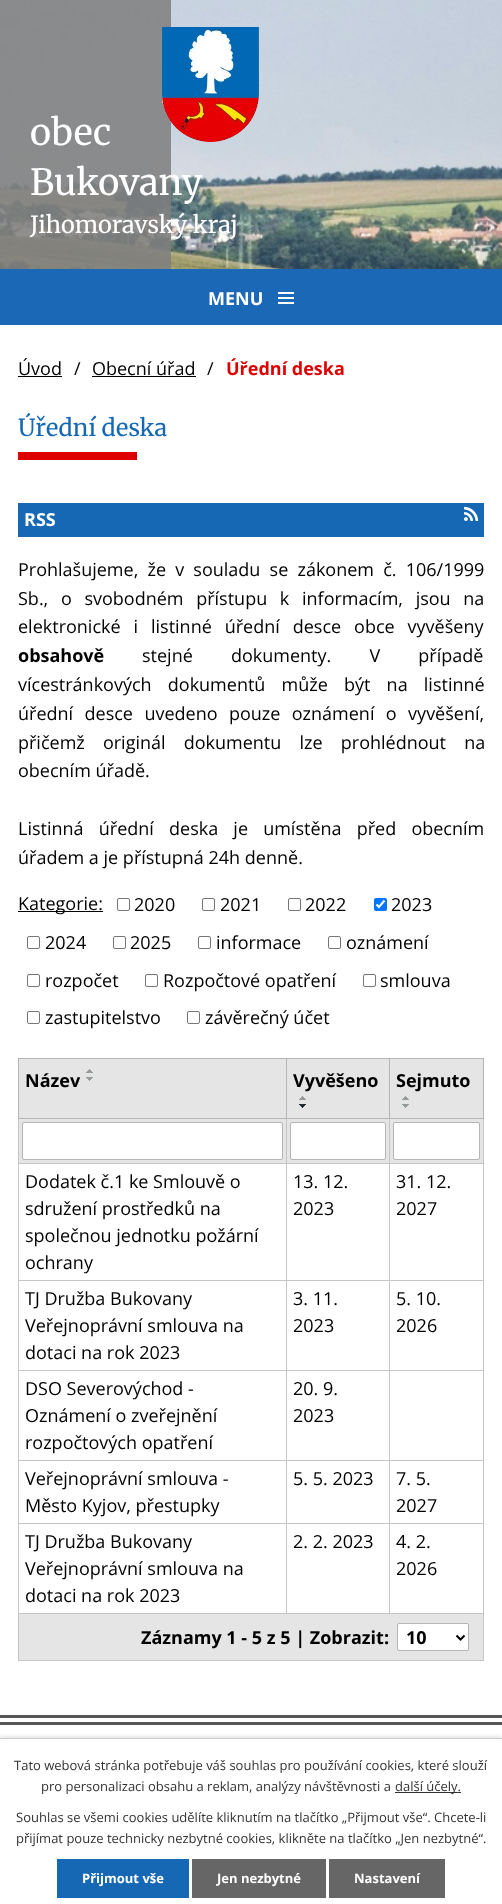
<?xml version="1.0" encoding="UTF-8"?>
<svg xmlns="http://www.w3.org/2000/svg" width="502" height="1904">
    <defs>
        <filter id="blur1" x="-50%" y="-200%" width="200%" height="500%"><feGaussianBlur stdDeviation="2.5"/></filter>
    </defs>
    <rect width="100%" height="100%" fill="#FFFFFF"/>
    <image x="0" y="0" width="502" height="269" href="img_01.png"/>
    <rect x="0" y="0" width="171" height="269" fill="#7F7F7F" fill-opacity="0.87"/>
    <image x="162" y="27" width="97" height="115" href="img_02.png"/>
    <text font-family="Merriweather" font-size="36" font-weight="300" fill="#FFFFFF">
        <tspan x="30" y="145">obec</tspan>
        <tspan x="30" y="195">Bukovany</tspan>
    </text>
    <text x="30" y="233" font-family="Merriweather" font-size="23.5" font-weight="300" fill="#FFFFFF">Jihomoravský kraj</text>
    <rect x="0" y="269" width="502" height="56" fill="#1B69B6"/>
    <text x="208" y="305" font-family="Open Sans" font-size="18" font-weight="700" fill="#FFFFFF">MENU</text>
    <image x="278" y="292" width="16" height="12" href="img_03.png"/>
    <text x="18" y="375" font-family="Open Sans" font-size="18" fill="#000000">Úvod</text>
    <rect x="18" y="376" width="44" height="1" fill="#000000"/>
    <text x="74" y="375" font-family="Open Sans" font-size="18" fill="#000000">/</text>
    <text x="92" y="375" font-family="Open Sans" font-size="18" fill="#000000">Obecní úřad</text>
    <rect x="92" y="376" width="104" height="1" fill="#000000"/>
    <text x="207" y="375" font-family="Open Sans" font-size="18" fill="#000000">/</text>
    <text x="226" y="375" font-family="Open Sans" font-size="18" font-weight="700" fill="#DE0000">Úřední deska</text>
    <text x="18" y="436" font-family="Merriweather" font-size="23.5" font-weight="300" fill="#1668B5">Úřední deska</text>
    <rect x="18" y="452" width="119" height="8" fill="#DE0000"/>
    <rect x="18" y="503" width="466" height="34" fill="#1668B5"/>
    <text x="24" y="526" font-family="Open Sans" font-size="18" font-weight="700" fill="#FFFFFF">RSS</text>
    <image x="464" y="506" width="15" height="15" href="img_04.png"/>
    <text font-family="Open Sans" font-size="18" fill="#000000">
        <tspan x="18" y="576" word-spacing="4.5">Prohlašujeme, že v souladu se zákonem č. 106/1999</tspan>
        <tspan x="18" y="605" word-spacing="8">Sb., o svobodném přístupu k informacím, jsou na</tspan>
        <tspan x="18" y="633" word-spacing="8.25">elektronické i listinné úřední desce obce vyvěšeny</tspan>
    </text>
    <text x="18" y="662" font-family="Open Sans" font-size="18" font-weight="700" fill="#000000">obsahově</text>
    <text x="142" y="662" word-spacing="33.5" font-family="Open Sans" font-size="18" fill="#000000">stejné dokumenty. V případě</text>
    <text font-family="Open Sans" font-size="18" fill="#000000">
        <tspan x="18" y="691" word-spacing="11.5">vícestránkových dokumentů může být na listinné</tspan>
        <tspan x="18" y="720" word-spacing="6.75">úřední desce uvedeno pouze oznámení o vyvěšení,</tspan>
        <tspan x="18" y="749" word-spacing="13.5">přičemž originál dokumentu lze prohlédnout na</tspan>
        <tspan x="18" y="777">obecním úřadě.</tspan>
    </text>
    <text font-family="Open Sans" font-size="18" fill="#000000">
        <tspan x="18" y="835" word-spacing="10.5">Listinná úřední deska je umístěna před obecním</tspan>
        <tspan x="18" y="864">úřadem a je přístupná 24h denně.</tspan>
    </text>
    <rect x="18" y="911" width="85" height="1" fill="#000000"/>
    <text x="18" y="910" font-family="Open Sans" font-size="18" fill="#000000">Kategorie:</text>
    <rect x="117.5" y="898.5" width="12" height="12" rx="1.5" fill="none" stroke="#767676"/>
    <text x="134" y="911" font-family="Open Sans" font-size="18" fill="#000000">2020</text>
    <rect x="202.5" y="898.5" width="12" height="12" rx="1.5" fill="none" stroke="#767676"/>
    <text x="220" y="911" font-family="Open Sans" font-size="18" fill="#000000">2021</text>
    <rect x="288.5" y="898.5" width="12" height="12" rx="1.5" fill="none" stroke="#767676"/>
    <text x="305" y="911" font-family="Open Sans" font-size="18" fill="#000000">2022</text>
    <rect x="374" y="898" width="13" height="13" rx="2" fill="#0075FF"/>
    <path d="M 376.5 904.5 L 379 907 L 384.5 900.5" fill="none" stroke="#FFFFFF" stroke-width="2.1"/>
    <text x="391" y="911" font-family="Open Sans" font-size="18" fill="#000000">2023</text>
    <rect x="27.5" y="936.5" width="12" height="12" rx="1.5" fill="none" stroke="#767676"/>
    <text x="45" y="949" font-family="Open Sans" font-size="18" fill="#000000">2024</text>
    <rect x="113.5" y="936.5" width="12" height="12" rx="1.5" fill="none" stroke="#767676"/>
    <text x="130" y="949" font-family="Open Sans" font-size="18" fill="#000000">2025</text>
    <rect x="198.5" y="936.5" width="12" height="12" rx="1.5" fill="none" stroke="#767676"/>
    <text x="216" y="949" font-family="Open Sans" font-size="18" fill="#000000">informace</text>
    <rect x="328.5" y="936.5" width="12" height="12" rx="1.5" fill="none" stroke="#767676"/>
    <text x="346" y="949" font-family="Open Sans" font-size="18" fill="#000000">oznámení</text>
    <rect x="27.5" y="974.5" width="12" height="12" rx="1.5" fill="none" stroke="#767676"/>
    <text x="45" y="987" font-family="Open Sans" font-size="18" fill="#000000">rozpočet</text>
    <rect x="145.5" y="974.5" width="12" height="12" rx="1.5" fill="none" stroke="#767676"/>
    <text x="163" y="987" font-family="Open Sans" font-size="18" fill="#000000">Rozpočtové opatření</text>
    <rect x="363.5" y="974.5" width="12" height="12" rx="1.5" fill="none" stroke="#767676"/>
    <text x="380" y="987" font-family="Open Sans" font-size="18" fill="#000000">smlouva</text>
    <rect x="27.5" y="1011.5" width="12" height="12" rx="1.5" fill="none" stroke="#767676"/>
    <text x="45" y="1024" font-family="Open Sans" font-size="18" fill="#000000">zastupitelstvo</text>
    <rect x="187.5" y="1011.5" width="12" height="12" rx="1.5" fill="none" stroke="#767676"/>
    <text x="205" y="1024" font-family="Open Sans" font-size="18" fill="#000000">závěrečný účet</text>
    <rect x="19" y="1059" width="267" height="59" fill="#E5E5E5"/>
    <rect x="389" y="1058" width="95" height="1" fill="#B5B5B5"/>
    <rect x="389" y="1163" width="95" height="1" fill="#C5C5C5"/>
    <rect x="389" y="1280" width="95" height="1" fill="#C5C5C5"/>
    <rect x="389" y="1370" width="95" height="1" fill="#C5C5C5"/>
    <rect x="389" y="1460" width="95" height="1" fill="#C5C5C5"/>
    <rect x="389" y="1523" width="95" height="1" fill="#C5C5C5"/>
    <rect x="483" y="1523" width="1" height="91" fill="#C5C5C5"/>
    <rect x="483" y="1460" width="1" height="64" fill="#C5C5C5"/>
    <rect x="483" y="1370" width="1" height="91" fill="#C5C5C5"/>
    <rect x="483" y="1280" width="1" height="91" fill="#C5C5C5"/>
    <rect x="483" y="1118" width="1" height="163" fill="#C5C5C5"/>
    <rect x="483" y="1058" width="1" height="61" fill="#B5B5B5"/>
    <rect x="19" y="1119" width="464" height="44" fill="#E5E5E5"/>
    <rect x="389" y="1613" width="95" height="1" fill="#C5C5C5"/>
    <rect x="389" y="1523" width="1" height="91" fill="#C5C5C5"/>
    <rect x="286" y="1523" width="104" height="1" fill="#C5C5C5"/>
    <rect x="389" y="1460" width="1" height="64" fill="#C5C5C5"/>
    <rect x="286" y="1460" width="104" height="1" fill="#C5C5C5"/>
    <rect x="389" y="1370" width="1" height="91" fill="#C5C5C5"/>
    <rect x="286" y="1370" width="104" height="1" fill="#C5C5C5"/>
    <rect x="389" y="1280" width="1" height="91" fill="#C5C5C5"/>
    <rect x="286" y="1280" width="104" height="1" fill="#C5C5C5"/>
    <rect x="389" y="1163" width="1" height="118" fill="#C5C5C5"/>
    <rect x="286" y="1163" width="104" height="1" fill="#C5C5C5"/>
    <rect x="389" y="1118" width="1" height="46" fill="#C5C5C5"/>
    <rect x="389" y="1118" width="95" height="1" fill="#B5B5B5"/>
    <rect x="389" y="1058" width="1" height="61" fill="#B5B5B5"/>
    <rect x="286" y="1058" width="104" height="1" fill="#B5B5B5"/>
    <rect x="286" y="1613" width="104" height="1" fill="#C5C5C5"/>
    <rect x="286" y="1523" width="1" height="91" fill="#C5C5C5"/>
    <rect x="18" y="1523" width="269" height="1" fill="#C5C5C5"/>
    <rect x="286" y="1460" width="1" height="64" fill="#C5C5C5"/>
    <rect x="18" y="1460" width="269" height="1" fill="#C5C5C5"/>
    <rect x="286" y="1370" width="1" height="91" fill="#C5C5C5"/>
    <rect x="18" y="1370" width="269" height="1" fill="#C5C5C5"/>
    <rect x="286" y="1280" width="1" height="91" fill="#C5C5C5"/>
    <rect x="18" y="1280" width="269" height="1" fill="#C5C5C5"/>
    <rect x="286" y="1163" width="1" height="118" fill="#C5C5C5"/>
    <rect x="18" y="1163" width="269" height="1" fill="#C5C5C5"/>
    <rect x="286" y="1118" width="1" height="46" fill="#C5C5C5"/>
    <rect x="286" y="1118" width="104" height="1" fill="#B5B5B5"/>
    <rect x="286" y="1058" width="1" height="61" fill="#B5B5B5"/>
    <rect x="18" y="1058" width="269" height="1" fill="#B5B5B5"/>
    <rect x="18" y="1613" width="269" height="1" fill="#C5C5C5"/>
    <rect x="18" y="1523" width="1" height="91" fill="#C5C5C5"/>
    <rect x="18" y="1460" width="1" height="64" fill="#C5C5C5"/>
    <rect x="18" y="1370" width="1" height="91" fill="#C5C5C5"/>
    <rect x="18" y="1280" width="1" height="91" fill="#C5C5C5"/>
    <rect x="18" y="1118" width="1" height="163" fill="#C5C5C5"/>
    <rect x="18" y="1118" width="269" height="1" fill="#B5B5B5"/>
    <rect x="18" y="1058" width="1" height="61" fill="#B5B5B5"/>
    <text x="25" y="1087" font-family="Open Sans" font-size="18" font-weight="700" fill="#000000">Název</text>
    <image x="86" y="1069" width="7" height="4" href="img_05.png"/>
    <image x="86" y="1077" width="7" height="4" href="img_06.png"/>
    <rect x="287" y="1059" width="102" height="59" fill="#E5E5E5"/>
    <text x="293" y="1087" font-family="Open Sans" font-size="18" font-weight="700" fill="#000000">Vyvěšeno</text>
    <image x="299" y="1096" width="7" height="4" href="img_05.png"/>
    <image x="299" y="1104" width="7" height="4" href="img_07.png"/>
    <rect x="390" y="1059" width="93" height="59" fill="#E5E5E5"/>
    <text x="396" y="1087" font-family="Open Sans" font-size="18" font-weight="700" fill="#000000">Sejmuto</text>
    <image x="402" y="1096" width="7" height="4" href="img_05.png"/>
    <image x="402" y="1104" width="7" height="4" href="img_06.png"/>
    <rect x="22.5" y="1122.5" width="260" height="37" rx="1.5" fill="#FFFFFF" stroke="#B5B5B5"/>
    <rect x="290.5" y="1122.5" width="95" height="37" rx="1.5" fill="#FFFFFF" stroke="#B5B5B5"/>
    <rect x="393.5" y="1122.5" width="86" height="37" rx="1.5" fill="#FFFFFF" stroke="#B5B5B5"/>
    <text font-family="Open Sans" font-size="18" fill="#000000">
        <tspan x="25" y="1188">Dodatek č.1 ke Smlouvě o</tspan>
        <tspan x="25" y="1215">sdružení prostředků na</tspan>
        <tspan x="25" y="1242">společnou jednotku požární</tspan>
        <tspan x="25" y="1269">ochrany</tspan>
    </text>
    <text font-family="Open Sans" font-size="18" fill="#000000">
        <tspan x="293" y="1188">13. 12.</tspan>
        <tspan x="293" y="1215">2023</tspan>
    </text>
    <text font-family="Open Sans" font-size="18" fill="#000000">
        <tspan x="396" y="1188">31. 12.</tspan>
        <tspan x="396" y="1215">2027</tspan>
    </text>
    <text font-family="Open Sans" font-size="18" fill="#000000">
        <tspan x="25" y="1305">TJ Družba Bukovany</tspan>
        <tspan x="25" y="1332">Veřejnoprávní smlouva na</tspan>
        <tspan x="25" y="1359">dotaci na rok 2023</tspan>
    </text>
    <text font-family="Open Sans" font-size="18" fill="#000000">
        <tspan x="293" y="1305">3. 11.</tspan>
        <tspan x="293" y="1332">2023</tspan>
    </text>
    <text font-family="Open Sans" font-size="18" fill="#000000">
        <tspan x="396" y="1305">5. 10.</tspan>
        <tspan x="396" y="1332">2026</tspan>
    </text>
    <text font-family="Open Sans" font-size="18" fill="#000000">
        <tspan x="25" y="1395">DSO Severovýchod -</tspan>
        <tspan x="25" y="1422">Oznámení o zveřejnění</tspan>
        <tspan x="25" y="1449">rozpočtových opatření</tspan>
    </text>
    <text font-family="Open Sans" font-size="18" fill="#000000">
        <tspan x="293" y="1395">20. 9.</tspan>
        <tspan x="293" y="1422">2023</tspan>
    </text>
    <text font-family="Open Sans" font-size="18" fill="#000000">
        <tspan x="25" y="1485">Veřejnoprávní smlouva -</tspan>
        <tspan x="25" y="1512">Město Kyjov, přestupky</tspan>
    </text>
    <text x="293" y="1485" font-family="Open Sans" font-size="18" fill="#000000">5. 5. 2023</text>
    <text font-family="Open Sans" font-size="18" fill="#000000">
        <tspan x="396" y="1485">7. 5.</tspan>
        <tspan x="396" y="1512">2027</tspan>
    </text>
    <text font-family="Open Sans" font-size="18" fill="#000000">
        <tspan x="25" y="1548">TJ Družba Bukovany</tspan>
        <tspan x="25" y="1575">Veřejnoprávní smlouva na</tspan>
        <tspan x="25" y="1602">dotaci na rok 2023</tspan>
    </text>
    <text x="293" y="1548" font-family="Open Sans" font-size="18" fill="#000000">2. 2. 2023</text>
    <text font-family="Open Sans" font-size="18" fill="#000000">
        <tspan x="396" y="1548">4. 2.</tspan>
        <tspan x="396" y="1575">2026</tspan>
    </text>
    <rect x="19" y="1614" width="464" height="46" fill="#E5E5E5"/>
    <rect x="483" y="1613" width="1" height="48" fill="#C5C5C5"/>
    <rect x="18" y="1660" width="466" height="1" fill="#C5C5C5"/>
    <rect x="18" y="1613" width="1" height="48" fill="#C5C5C5"/>
    <text x="141" y="1644" font-family="Open Sans" font-size="18" font-weight="700" fill="#000000">Záznamy 1 - 5 z 5 | Zobrazit:</text>
    <rect x="397.5" y="1623.5" width="71" height="27" rx="1.5" fill="#FFFFFF" stroke="#B5B5B5"/>
    <path d="M 456.5 1635.5 L 460.5 1639.5 L 464.5 1635.5" fill="none" stroke="#000000" stroke-width="2"/>
    <text x="406" y="1644" font-family="Open Sans" font-size="18" font-weight="700" fill="#000000">10</text>
    <rect x="0" y="1715" width="502" height="3" fill="#555555"/>
    <rect x="0" y="1722" width="502" height="3" fill="#555555"/>
    <rect x="0" y="1738" width="502" height="166" fill="#000000" fill-opacity="0.2" filter="url(#blur1)"/>
    <rect x="0" y="1739" width="502" height="165" fill="#FFFFFF"/>
    <rect x="0" y="1738" width="502" height="1" fill="#CCCCCC"/>
    <text x="14" y="1770" font-family="Open Sans" font-size="13" fill="#333333">Tato webová stránka potřebuje váš souhlas pro používání cookies, které slouží</text>
    <text x="41" y="1791" font-family="Open Sans" font-size="13" fill="#333333">pro personalizaci obsahu a reklam, analýzy návštěvnosti a</text>
    <rect x="395" y="1792" width="66" height="1" fill="#333333"/>
    <text x="395" y="1791" font-family="Open Sans" font-size="13" fill="#333333">další účely.</text>
    <text font-family="Open Sans" font-size="13" fill="#333333">
        <tspan x="16" y="1822">Souhlas se všemi cookies udělíte kliknutím na tlačítko „Přijmout vše“. Chcete-li</tspan>
        <tspan x="16" y="1843">přijímat pouze technicky nezbytné cookies, klikněte na tlačítko „Jen nezbytné“.</tspan>
    </text>
    <rect x="57" y="1859" width="132" height="39" fill="#1668B5"/>
    <text x="82" y="1883" font-family="Open Sans" font-size="13" font-weight="700" fill="#FFFFFF">Přijmout vše</text>
    <rect x="192" y="1859" width="134" height="39" fill="#666666"/>
    <text x="217" y="1883" font-family="Open Sans" font-size="13" font-weight="700" fill="#FFFFFF">Jen nezbytné</text>
    <rect x="329" y="1859" width="116" height="39" fill="#666666"/>
    <text x="354" y="1883" font-family="Open Sans" font-size="13" font-weight="700" fill="#FFFFFF">Nastavení</text>
</svg>
